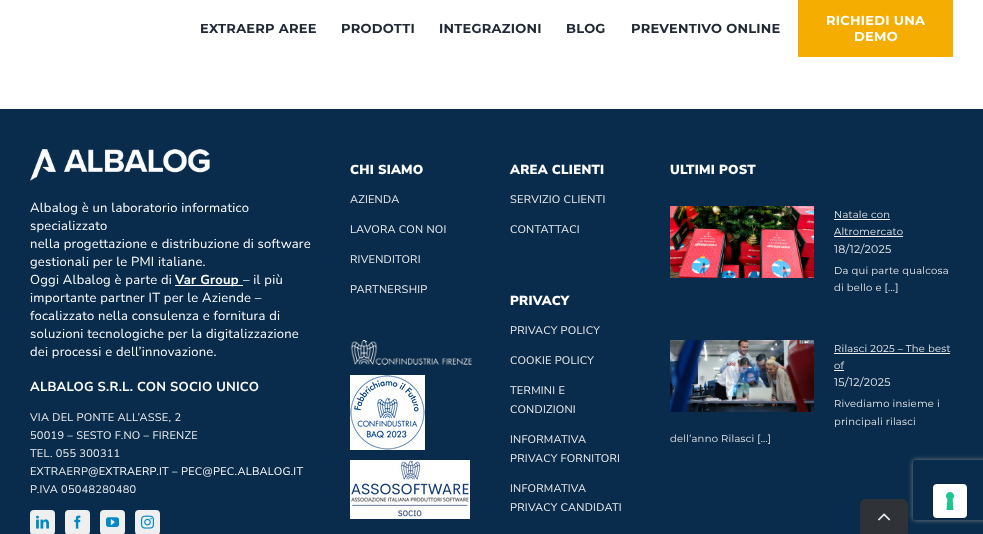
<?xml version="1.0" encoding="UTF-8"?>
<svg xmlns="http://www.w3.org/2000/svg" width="983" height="534">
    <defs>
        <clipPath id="clip1"><path d="M 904 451 H 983 V 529 H 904 Z M 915 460 H 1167 C 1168 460 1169 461 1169 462 V 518 C 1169 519 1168 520 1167 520 H 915 C 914 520 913 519 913 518 V 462 C 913 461 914 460 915 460 Z" clip-rule="evenodd"/></clipPath>
        <filter id="blur1" x="-50%" y="-200%" width="200%" height="500%"><feGaussianBlur stdDeviation="2.5"/></filter>
    </defs>
    <rect width="100%" height="100%" fill="#FFFFFF"/>
    <text x="200" y="33" font-family="Montserrat" font-size="13" font-weight="700" letter-spacing="0.25" fill="#212934">EXTRAERP AREE</text>
    <text x="341" y="33" font-family="Montserrat" font-size="13" font-weight="700" letter-spacing="0.25" fill="#212934">PRODOTTI</text>
    <text x="439" y="33" font-family="Montserrat" font-size="13" font-weight="700" letter-spacing="0.25" fill="#212934">INTEGRAZIONI</text>
    <text x="566" y="33" font-family="Montserrat" font-size="13" font-weight="700" letter-spacing="0.25" fill="#212934">BLOG</text>
    <text x="631" y="33" font-family="Montserrat" font-size="13" font-weight="700" letter-spacing="0.25" fill="#212934">PREVENTIVO ONLINE</text>
    <rect x="798" y="0" width="155" height="57" fill="#F4AD00"/>
    <text x="826" y="25" font-family="Montserrat" font-size="13" font-weight="700" letter-spacing="0.25" fill="#FFFFFF">RICHIEDI UNA</text>
    <text x="854" y="41" font-family="Montserrat" font-size="13" font-weight="700" letter-spacing="0.25" fill="#FFFFFF">DEMO</text>
    <rect x="0" y="109" width="983" height="425" fill="#092C4C"/>
    <image x="30" y="149" width="180" height="32" href="img_01.png"/>
    <text font-family="Nunito Sans" font-size="13" letter-spacing="0.25" fill="#FFFFFF">
        <tspan x="30" y="212">Albalog è un laboratorio informatico</tspan>
        <tspan x="30" y="230">specializzato</tspan>
        <tspan x="30" y="248">nella progettazione e distribuzione di software</tspan>
        <tspan x="30" y="266">gestionali per le PMI italiane.</tspan>
        <tspan x="30" y="284">Oggi Albalog è parte di</tspan>
    </text>
    <rect x="175" y="285" width="68" height="1" fill="#FFFFFF"/>
    <text x="175" y="284" font-family="Nunito Sans" font-size="13" font-weight="700" letter-spacing="0.25" fill="#FFFFFF">Var Group</text>
    <text x="243" y="284" font-family="Nunito Sans" font-size="13" letter-spacing="0.25" fill="#FFFFFF">– il più</text>
    <text font-family="Nunito Sans" font-size="13" letter-spacing="0.25" fill="#FFFFFF">
        <tspan x="30" y="302">importante partner IT per le Aziende –</tspan>
        <tspan x="30" y="320">focalizzato nella consulenza e fornitura di</tspan>
        <tspan x="30" y="338">soluzioni tecnologiche per la digitalizzazione</tspan>
        <tspan x="30" y="356">dei processi e dell’innovazione.</tspan>
    </text>
    <text x="30" y="391" font-family="Nunito Sans" font-size="13" font-weight="700" letter-spacing="0.25" fill="#FFFFFF">ALBALOG S.R.L. CON SOCIO UNICO</text>
    <text font-family="Nunito Sans" font-size="11" letter-spacing="0.25" fill="#EFEFEF">
        <tspan x="30" y="421">VIA DEL PONTE ALL’ASSE, 2</tspan>
        <tspan x="30" y="439">50019 – SESTO F.NO – FIRENZE</tspan>
        <tspan x="30" y="457">TEL. 055 300311</tspan>
        <tspan x="30" y="475">EXTRAERP</tspan>
    </text>
    <text x="88" y="475" font-family="Nunito Sans" font-size="11" letter-spacing="0.25" fill="#FFFFFF">@EXTRAERP.IT</text>
    <text x="172" y="475" font-family="Nunito Sans" font-size="11" letter-spacing="0.25" fill="#EFEFEF">–</text>
    <text x="181" y="475" font-family="Nunito Sans" font-size="11" letter-spacing="0.25" fill="#FFFFFF">PEC@PEC.ALBALOG.IT</text>
    <text x="30" y="493" font-family="Nunito Sans" font-size="11" letter-spacing="0.25" fill="#EFEFEF">P.IVA 05048280480</text>
    <rect x="30" y="510" width="25" height="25" rx="4" fill="#EFEFEF"/>
    <image x="36" y="515" width="13" height="14" href="img_02.png"/>
    <rect x="65" y="510" width="25" height="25" rx="4" fill="#EFEFEF"/>
    <image x="74" y="515" width="7" height="14" href="img_03.png"/>
    <rect x="100" y="510" width="25" height="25" rx="4" fill="#EFEFEF"/>
    <image x="106" y="517" width="13" height="10" href="img_04.png"/>
    <rect x="135" y="510" width="25" height="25" rx="4" fill="#EFEFEF"/>
    <image x="141" y="515" width="13" height="14" href="img_05.png"/>
    <text x="350" y="174" font-family="Nunito Sans" font-size="13" font-weight="900" letter-spacing="0.25" fill="#FFFFFF">CHI SIAMO</text>
    <text x="350" y="203" font-family="Nunito Sans" font-size="11" letter-spacing="0.25" fill="#EFEFEF">AZIENDA</text>
    <text x="350" y="233" font-family="Nunito Sans" font-size="11" letter-spacing="0.25" fill="#EFEFEF">LAVORA CON NOI</text>
    <text x="350" y="263" font-family="Nunito Sans" font-size="11" letter-spacing="0.25" fill="#EFEFEF">RIVENDITORI</text>
    <text x="350" y="293" font-family="Nunito Sans" font-size="11" letter-spacing="0.25" fill="#EFEFEF">PARTNERSHIP</text>
    <image x="350" y="340" width="123" height="25" href="img_06.png"/>
    <image x="350" y="375" width="75" height="75" href="img_07.png"/>
    <image x="350" y="460" width="120" height="59" href="img_08.png"/>
    <text x="510" y="174" font-family="Nunito Sans" font-size="13" font-weight="900" letter-spacing="0.25" fill="#FFFFFF">AREA CLIENTI</text>
    <text x="510" y="203" font-family="Nunito Sans" font-size="11" letter-spacing="0.25" fill="#EFEFEF">SERVIZIO CLIENTI</text>
    <text x="510" y="233" font-family="Nunito Sans" font-size="11" letter-spacing="0.25" fill="#EFEFEF">CONTATTACI</text>
    <text x="510" y="305" font-family="Nunito Sans" font-size="13" font-weight="900" letter-spacing="0.25" fill="#FFFFFF">PRIVACY</text>
    <text x="510" y="334" font-family="Nunito Sans" font-size="11" letter-spacing="0.25" fill="#EFEFEF">PRIVACY POLICY</text>
    <text x="510" y="364" font-family="Nunito Sans" font-size="11" letter-spacing="0.25" fill="#EFEFEF">COOKIE POLICY</text>
    <text font-family="Nunito Sans" font-size="11" letter-spacing="0.25" fill="#EFEFEF">
        <tspan x="510" y="394">TERMINI E</tspan>
        <tspan x="510" y="413">CONDIZIONI</tspan>
    </text>
    <text font-family="Nunito Sans" font-size="11" letter-spacing="0.25" fill="#EFEFEF">
        <tspan x="510" y="443">INFORMATIVA</tspan>
        <tspan x="510" y="462">PRIVACY FORNITORI</tspan>
    </text>
    <text font-family="Nunito Sans" font-size="11" letter-spacing="0.25" fill="#EFEFEF">
        <tspan x="510" y="492">INFORMATIVA</tspan>
        <tspan x="510" y="511">PRIVACY CANDIDATI</tspan>
    </text>
    <text x="670" y="174" font-family="Nunito Sans" font-size="13" font-weight="900" letter-spacing="0.25" fill="#FFFFFF">ULTIMI POST</text>
    <image x="670" y="206" width="144" height="72" href="img_09.png"/>
    <text x="834" y="218" font-family="Montserrat" font-size="10" letter-spacing="0.25" fill="#EFEFEF">Natale con</text>
    <rect x="834" y="219" width="56" height="1" fill="#EFEFEF"/>
    <text x="834" y="235" font-family="Montserrat" font-size="10" letter-spacing="0.25" fill="#EFEFEF">Altromercato</text>
    <rect x="834" y="236" width="69" height="1" fill="#EFEFEF"/>
    <text x="834" y="253" font-family="Montserrat" font-size="11" letter-spacing="0.25" fill="#EFEFEF">18/12/2025</text>
    <text font-family="Montserrat" font-size="10" letter-spacing="0.25" fill="#EFEFEF">
        <tspan x="834" y="274">Da qui parte qualcosa</tspan>
        <tspan x="834" y="291">di bello e [...]</tspan>
    </text>
    <image x="670" y="340" width="144" height="72" href="img_10.png"/>
    <text x="834" y="352" font-family="Montserrat" font-size="10" letter-spacing="0.25" fill="#EFEFEF">Rilasci 2025 – The best</text>
    <rect x="834" y="353" width="116" height="1" fill="#EFEFEF"/>
    <text x="834" y="369" font-family="Montserrat" font-size="10" letter-spacing="0.25" fill="#EFEFEF">of</text>
    <rect x="834" y="370" width="10" height="1" fill="#EFEFEF"/>
    <text x="834" y="386" font-family="Montserrat" font-size="11" letter-spacing="0.25" fill="#EFEFEF">15/12/2025</text>
    <text font-family="Montserrat" font-size="10" letter-spacing="0.25" fill="#EFEFEF">
        <tspan x="834" y="407">Rivediamo insieme i</tspan>
        <tspan x="834" y="425">principali rilasci</tspan>
    </text>
    <text x="670" y="442" font-family="Montserrat" font-size="10" letter-spacing="0.25" fill="#EFEFEF">dell’anno Rilasci [...]</text>
    <g clip-path="url(#clip1)">
        <rect x="913" y="460" width="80" height="60" rx="2" fill="#808080" filter="url(#blur1)"/>
    </g>
    <path d="M 866 499 H 902 C 905.5 499 908 501.5 908 505 V 534 H 860 V 505 C 860 501.5 862.5 499 866 499 Z" fill="#2F3236"/>
    <image x="878" y="513" width="13" height="8" href="img_11.png"/>
    <rect x="932.5" y="483.5" width="35" height="35" rx="4.5" fill="none" stroke="#082541"/>
    <rect x="933" y="484" width="34" height="34" rx="4" fill="#FFFFFF"/>
    <image x="946" y="492" width="8" height="18" href="img_12.png"/>
</svg>
